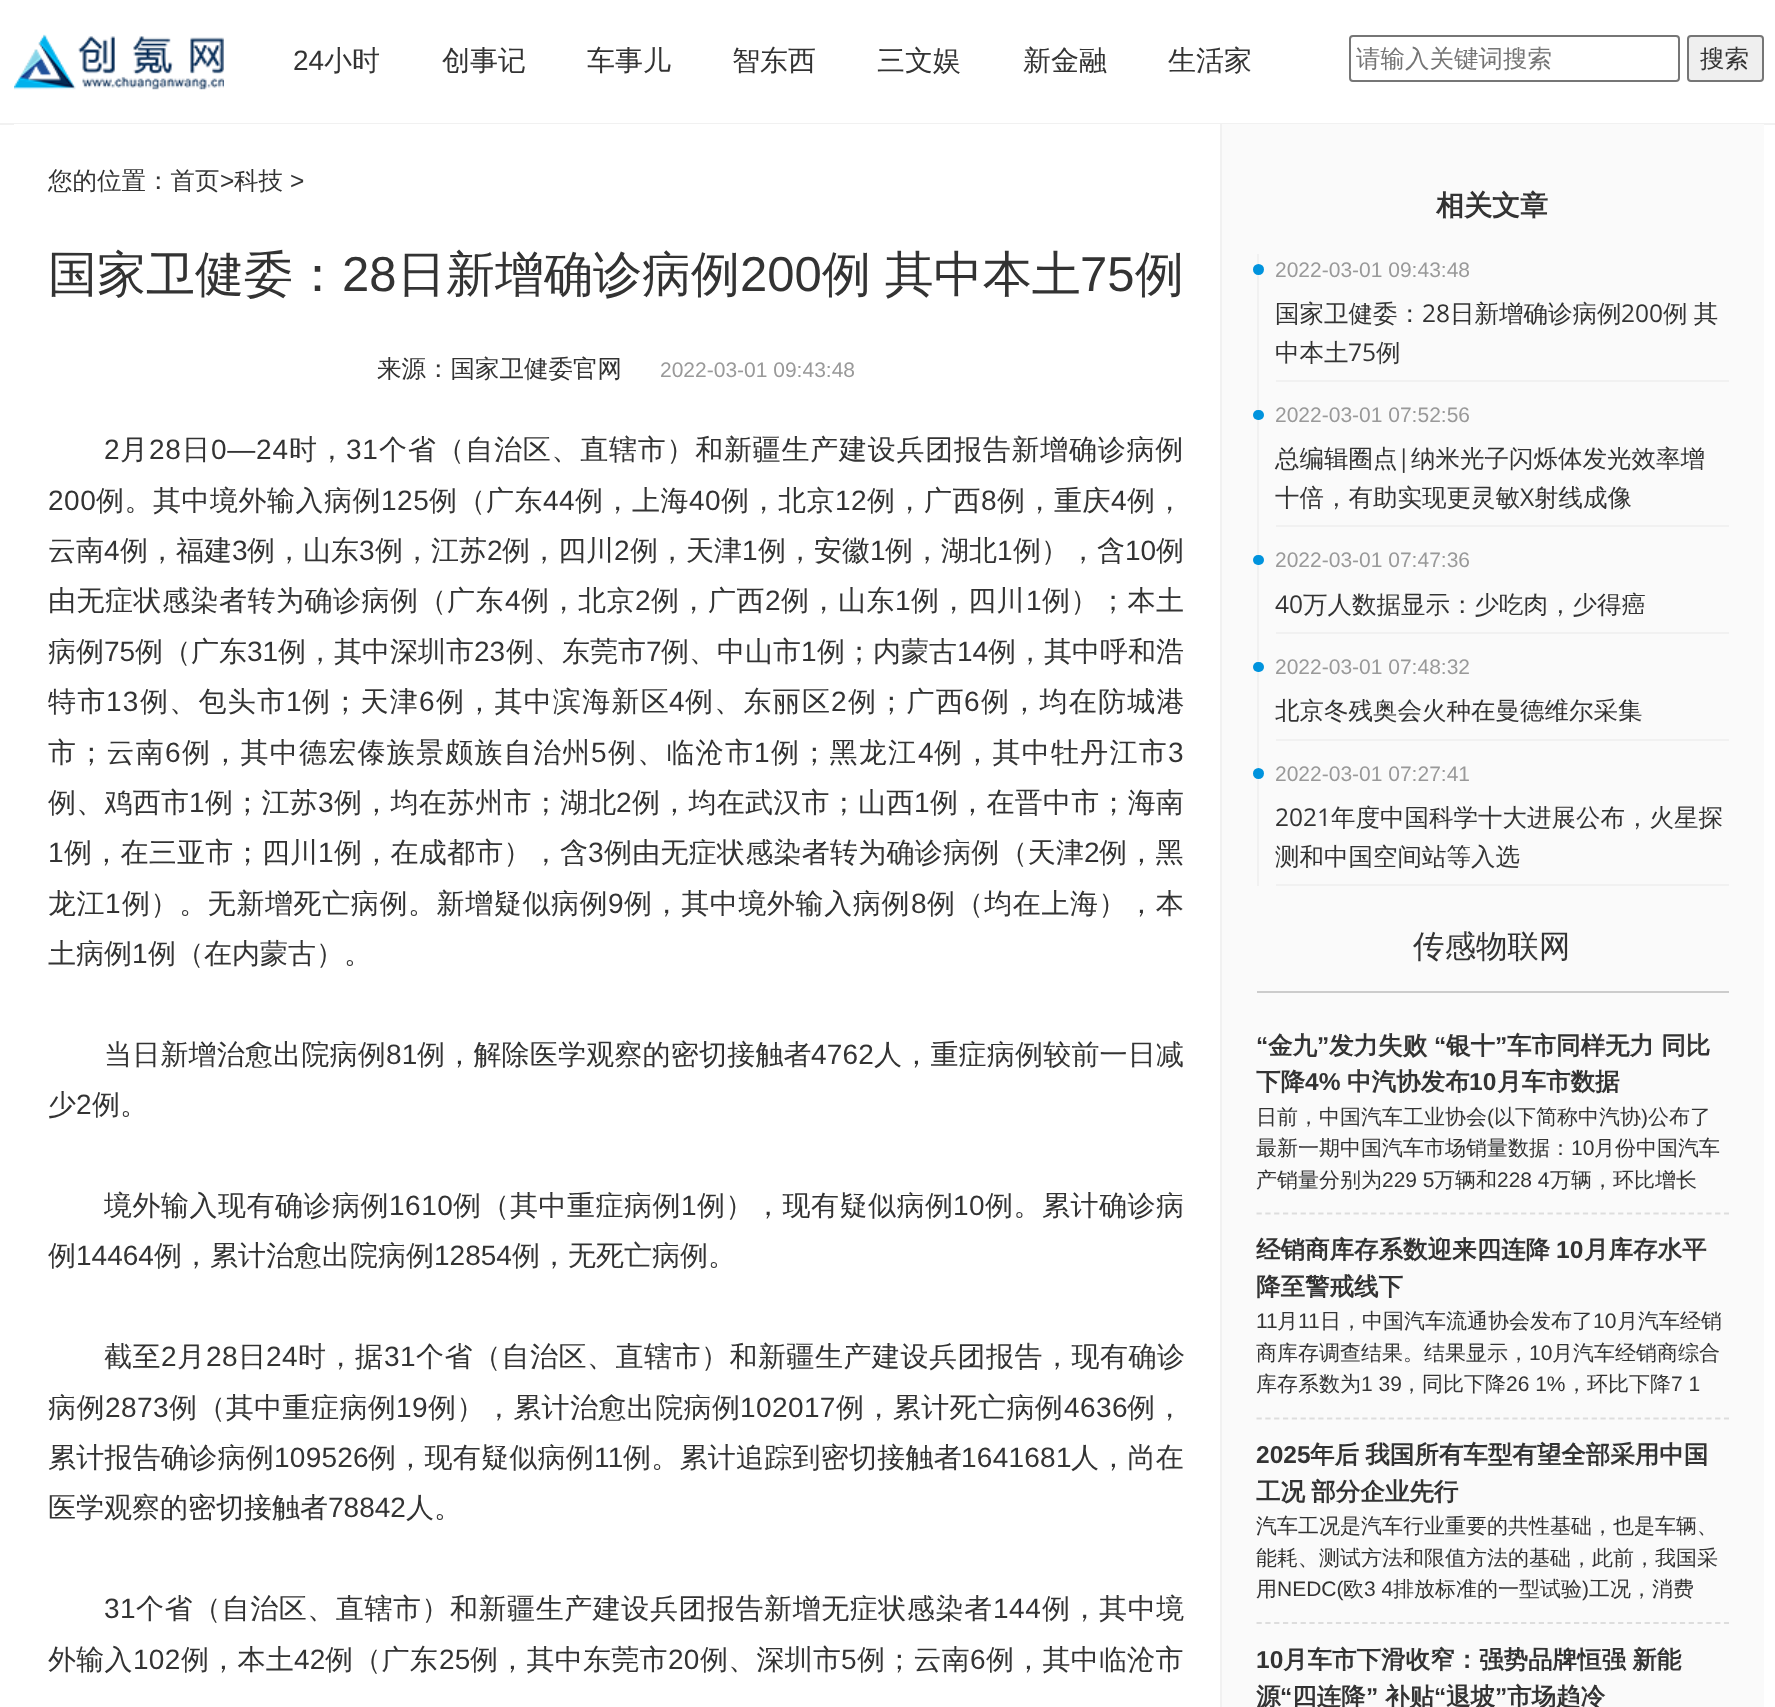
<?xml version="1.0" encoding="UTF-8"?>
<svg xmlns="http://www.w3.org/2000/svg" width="1775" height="1707">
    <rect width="100%" height="100%" fill="#FFFFFF"/>
    <rect x="0" y="123" width="1775" height="2" fill="#F1F1F1"/>
    <image x="14" y="34" width="210" height="56" href="img_01.png"/>
    <text x="293" y="70" font-family="Liberation Sans" font-size="28" fill="#333333">24</text>
    <text x="324" y="70" font-family="WenQuanYi Zen Hei" font-size="28" font-weight="500" fill="#333333">小时</text>
    <text x="442" y="70" font-family="WenQuanYi Zen Hei" font-size="28" font-weight="500" fill="#333333">创事记</text>
    <text x="587" y="70" font-family="WenQuanYi Zen Hei" font-size="28" font-weight="500" fill="#333333">车事儿</text>
    <text x="732" y="70" font-family="WenQuanYi Zen Hei" font-size="28" font-weight="500" fill="#333333">智东西</text>
    <text x="877" y="70" font-family="WenQuanYi Zen Hei" font-size="28" font-weight="500" fill="#333333">三文娱</text>
    <text x="1023" y="70" font-family="WenQuanYi Zen Hei" font-size="28" font-weight="500" fill="#333333">新金融</text>
    <text x="1168" y="70" font-family="WenQuanYi Zen Hei" font-size="28" font-weight="500" fill="#333333">生活家</text>
    <rect x="1350" y="36" width="329" height="45" rx="3" fill="none" stroke="#767676" stroke-width="2"/>
    <text x="1356" y="67" font-family="WenQuanYi Zen Hei" font-size="24.5" font-weight="500" fill="#757575">请输入关键词搜索</text>
    <rect x="1688" y="36" width="75" height="45" rx="3" fill="#EFEFEF" stroke="#767676" stroke-width="2"/>
    <text x="1700" y="67" font-family="WenQuanYi Zen Hei" font-size="24.5" font-weight="500" fill="#333333">搜索</text>
    <rect x="14" y="124" width="1206" height="1" fill="#FFFFFF"/>
    <rect x="1220" y="124" width="2" height="1583" fill="#F1F1F1"/>
    <text x="48" y="189" font-family="WenQuanYi Zen Hei" font-size="24.5" font-weight="500" fill="#333333">您的位置：首页</text>
    <text x="220" y="189" font-family="Liberation Sans" font-size="24.5" fill="#333333">&gt;</text>
    <text x="234" y="189" font-family="WenQuanYi Zen Hei" font-size="24.5" font-weight="500" fill="#333333">科技</text>
    <text x="290" y="189" font-family="Liberation Sans" font-size="24.5" fill="#333333">&gt;</text>
    <text x="48" y="291" font-family="WenQuanYi Zen Hei" font-size="49" font-weight="500" fill="#333333">国家卫健委：</text>
    <text x="342" y="291" font-family="Liberation Sans" font-size="49" fill="#333333">28</text>
    <text x="397" y="291" font-family="WenQuanYi Zen Hei" font-size="49" font-weight="500" fill="#333333">日新增确诊病例</text>
    <text x="740" y="291" font-family="Liberation Sans" font-size="49" fill="#333333">200</text>
    <text x="822" y="291" word-spacing="-1" font-family="WenQuanYi Zen Hei" font-size="49" font-weight="500" fill="#333333">例 其中本土</text>
    <text x="1080" y="291" font-family="Liberation Sans" font-size="49" fill="#333333">75</text>
    <text x="1135" y="291" font-family="WenQuanYi Zen Hei" font-size="49" font-weight="500" fill="#333333">例</text>
    <text x="377" y="377" font-family="WenQuanYi Zen Hei" font-size="24.5" font-weight="500" fill="#333333">来源：国家卫健委官网</text>
    <text x="660" y="377" font-family="Liberation Sans" font-size="21" fill="#999999">2022-03-01 09:43:48</text>
    <text x="104" y="459" font-family="Liberation Sans" font-size="28" letter-spacing="0.75" fill="#333333">2</text>
    <text x="120" y="459" font-family="WenQuanYi Zen Hei" font-size="28" font-weight="500" letter-spacing="0.75" fill="#333333">月</text>
    <text x="149" y="459" font-family="Liberation Sans" font-size="28" letter-spacing="0.75" fill="#333333">28</text>
    <text x="182" y="459" font-family="WenQuanYi Zen Hei" font-size="28" font-weight="500" letter-spacing="0.75" fill="#333333">日</text>
    <text x="211" y="459" font-family="Liberation Sans" font-size="28" letter-spacing="0.75" fill="#333333">0—24</text>
    <text x="289" y="459" font-family="WenQuanYi Zen Hei" font-size="28" font-weight="500" letter-spacing="0.75" fill="#333333">时，</text>
    <text x="346" y="459" font-family="Liberation Sans" font-size="28" letter-spacing="0.75" fill="#333333">31</text>
    <text x="379" y="459" font-family="WenQuanYi Zen Hei" font-size="28" font-weight="500" letter-spacing="0.75" fill="#333333">个省（自治区、直辖市）和新疆生产建设兵团报告新增确诊病例</text>
    <text x="48" y="510" font-family="Liberation Sans" font-size="28" letter-spacing="0.5" fill="#333333">200</text>
    <text x="96" y="510" font-family="WenQuanYi Zen Hei" font-size="28" font-weight="500" letter-spacing="0.5" fill="#333333">例。其中境外输入病例</text>
    <text x="381" y="510" font-family="Liberation Sans" font-size="28" letter-spacing="0.5" fill="#333333">125</text>
    <text x="429" y="510" font-family="WenQuanYi Zen Hei" font-size="28" font-weight="500" letter-spacing="0.5" fill="#333333">例（广东</text>
    <text x="543" y="510" font-family="Liberation Sans" font-size="28" letter-spacing="0.5" fill="#333333">44</text>
    <text x="575" y="510" font-family="WenQuanYi Zen Hei" font-size="28" font-weight="500" letter-spacing="0.5" fill="#333333">例，上海</text>
    <text x="689" y="510" font-family="Liberation Sans" font-size="28" letter-spacing="0.5" fill="#333333">40</text>
    <text x="721" y="510" font-family="WenQuanYi Zen Hei" font-size="28" font-weight="500" letter-spacing="0.5" fill="#333333">例，北京</text>
    <text x="835" y="510" font-family="Liberation Sans" font-size="28" letter-spacing="0.5" fill="#333333">12</text>
    <text x="867" y="510" font-family="WenQuanYi Zen Hei" font-size="28" font-weight="500" letter-spacing="0.5" fill="#333333">例，广西</text>
    <text x="981" y="510" font-family="Liberation Sans" font-size="28" letter-spacing="0.5" fill="#333333">8</text>
    <text x="997" y="510" font-family="WenQuanYi Zen Hei" font-size="28" font-weight="500" letter-spacing="0.5" fill="#333333">例，重庆</text>
    <text x="1111" y="510" font-family="Liberation Sans" font-size="28" letter-spacing="0.5" fill="#333333">4</text>
    <text x="1127" y="510" font-family="WenQuanYi Zen Hei" font-size="28" font-weight="500" letter-spacing="0.5" fill="#333333">例，</text>
    <text x="48" y="560" font-family="WenQuanYi Zen Hei" font-size="28" font-weight="500" fill="#333333">云南</text>
    <text x="104" y="560" font-family="Liberation Sans" font-size="28" fill="#333333">4</text>
    <text x="120" y="560" font-family="WenQuanYi Zen Hei" font-size="28" font-weight="500" fill="#333333">例，福建</text>
    <text x="232" y="560" font-family="Liberation Sans" font-size="28" fill="#333333">3</text>
    <text x="247" y="560" font-family="WenQuanYi Zen Hei" font-size="28" font-weight="500" fill="#333333">例，山东</text>
    <text x="359" y="560" font-family="Liberation Sans" font-size="28" fill="#333333">3</text>
    <text x="375" y="560" font-family="WenQuanYi Zen Hei" font-size="28" font-weight="500" fill="#333333">例，江苏</text>
    <text x="487" y="560" font-family="Liberation Sans" font-size="28" fill="#333333">2</text>
    <text x="502" y="560" font-family="WenQuanYi Zen Hei" font-size="28" font-weight="500" fill="#333333">例，四川</text>
    <text x="614" y="560" font-family="Liberation Sans" font-size="28" fill="#333333">2</text>
    <text x="630" y="560" font-family="WenQuanYi Zen Hei" font-size="28" font-weight="500" fill="#333333">例，天津</text>
    <text x="742" y="560" font-family="Liberation Sans" font-size="28" fill="#333333">1</text>
    <text x="758" y="560" font-family="WenQuanYi Zen Hei" font-size="28" font-weight="500" fill="#333333">例，安徽</text>
    <text x="870" y="560" font-family="Liberation Sans" font-size="28" fill="#333333">1</text>
    <text x="885" y="560" font-family="WenQuanYi Zen Hei" font-size="28" font-weight="500" fill="#333333">例，湖北</text>
    <text x="997" y="560" font-family="Liberation Sans" font-size="28" fill="#333333">1</text>
    <text x="1013" y="560" font-family="WenQuanYi Zen Hei" font-size="28" font-weight="500" fill="#333333">例），含</text>
    <text x="1125" y="560" font-family="Liberation Sans" font-size="28" fill="#333333">10</text>
    <text x="1156" y="560" font-family="WenQuanYi Zen Hei" font-size="28" font-weight="500" fill="#333333">例</text>
    <text x="48" y="610" font-family="WenQuanYi Zen Hei" font-size="28" font-weight="500" letter-spacing="0.5" fill="#333333">由无症状感染者转为确诊病例（广东</text>
    <text x="505" y="610" font-family="Liberation Sans" font-size="28" letter-spacing="0.5" fill="#333333">4</text>
    <text x="521" y="610" font-family="WenQuanYi Zen Hei" font-size="28" font-weight="500" letter-spacing="0.5" fill="#333333">例，北京</text>
    <text x="635" y="610" font-family="Liberation Sans" font-size="28" letter-spacing="0.5" fill="#333333">2</text>
    <text x="651" y="610" font-family="WenQuanYi Zen Hei" font-size="28" font-weight="500" letter-spacing="0.5" fill="#333333">例，广西</text>
    <text x="765" y="610" font-family="Liberation Sans" font-size="28" letter-spacing="0.5" fill="#333333">2</text>
    <text x="781" y="610" font-family="WenQuanYi Zen Hei" font-size="28" font-weight="500" letter-spacing="0.5" fill="#333333">例，山东</text>
    <text x="895" y="610" font-family="Liberation Sans" font-size="28" letter-spacing="0.5" fill="#333333">1</text>
    <text x="911" y="610" font-family="WenQuanYi Zen Hei" font-size="28" font-weight="500" letter-spacing="0.5" fill="#333333">例，四川</text>
    <text x="1026" y="610" font-family="Liberation Sans" font-size="28" letter-spacing="0.5" fill="#333333">1</text>
    <text x="1042" y="610" font-family="WenQuanYi Zen Hei" font-size="28" font-weight="500" letter-spacing="0.5" fill="#333333">例）；本土</text>
    <text x="48" y="661" font-family="WenQuanYi Zen Hei" font-size="28" font-weight="500" fill="#333333">病例</text>
    <text x="104" y="661" font-family="Liberation Sans" font-size="28" fill="#333333">75</text>
    <text x="135" y="661" font-family="WenQuanYi Zen Hei" font-size="28" font-weight="500" fill="#333333">例（广东</text>
    <text x="247" y="661" font-family="Liberation Sans" font-size="28" fill="#333333">31</text>
    <text x="278" y="661" font-family="WenQuanYi Zen Hei" font-size="28" font-weight="500" fill="#333333">例，其中深圳市</text>
    <text x="474" y="661" font-family="Liberation Sans" font-size="28" fill="#333333">23</text>
    <text x="506" y="661" font-family="WenQuanYi Zen Hei" font-size="28" font-weight="500" fill="#333333">例、东莞市</text>
    <text x="646" y="661" font-family="Liberation Sans" font-size="28" fill="#333333">7</text>
    <text x="661" y="661" font-family="WenQuanYi Zen Hei" font-size="28" font-weight="500" fill="#333333">例、中山市</text>
    <text x="801" y="661" font-family="Liberation Sans" font-size="28" fill="#333333">1</text>
    <text x="817" y="661" font-family="WenQuanYi Zen Hei" font-size="28" font-weight="500" fill="#333333">例；内蒙古</text>
    <text x="957" y="661" font-family="Liberation Sans" font-size="28" fill="#333333">14</text>
    <text x="988" y="661" font-family="WenQuanYi Zen Hei" font-size="28" font-weight="500" fill="#333333">例，其中呼和浩</text>
    <text x="48" y="711" font-family="WenQuanYi Zen Hei" font-size="28" font-weight="500" letter-spacing="1.25" fill="#333333">特市</text>
    <text x="106" y="711" font-family="Liberation Sans" font-size="28" letter-spacing="1.25" fill="#333333">13</text>
    <text x="140" y="711" font-family="WenQuanYi Zen Hei" font-size="28" font-weight="500" letter-spacing="1.25" fill="#333333">例、包头市</text>
    <text x="286" y="711" font-family="Liberation Sans" font-size="28" letter-spacing="1.25" fill="#333333">1</text>
    <text x="302" y="711" font-family="WenQuanYi Zen Hei" font-size="28" font-weight="500" letter-spacing="1.25" fill="#333333">例；天津</text>
    <text x="419" y="711" font-family="Liberation Sans" font-size="28" letter-spacing="1.25" fill="#333333">6</text>
    <text x="436" y="711" font-family="WenQuanYi Zen Hei" font-size="28" font-weight="500" letter-spacing="1.25" fill="#333333">例，其中滨海新区</text>
    <text x="669" y="711" font-family="Liberation Sans" font-size="28" letter-spacing="1.25" fill="#333333">4</text>
    <text x="685" y="711" font-family="WenQuanYi Zen Hei" font-size="28" font-weight="500" letter-spacing="1.25" fill="#333333">例、东丽区</text>
    <text x="831" y="711" font-family="Liberation Sans" font-size="28" letter-spacing="1.25" fill="#333333">2</text>
    <text x="848" y="711" font-family="WenQuanYi Zen Hei" font-size="28" font-weight="500" letter-spacing="1.25" fill="#333333">例；广西</text>
    <text x="964" y="711" font-family="Liberation Sans" font-size="28" letter-spacing="1.25" fill="#333333">6</text>
    <text x="981" y="711" font-family="WenQuanYi Zen Hei" font-size="28" font-weight="500" letter-spacing="1.25" fill="#333333">例，均在防城港</text>
    <text x="48" y="762" font-family="WenQuanYi Zen Hei" font-size="28" font-weight="500" letter-spacing="1.25" fill="#333333">市；云南</text>
    <text x="165" y="762" font-family="Liberation Sans" font-size="28" letter-spacing="1.25" fill="#333333">6</text>
    <text x="182" y="762" font-family="WenQuanYi Zen Hei" font-size="28" font-weight="500" letter-spacing="1.25" fill="#333333">例，其中德宏傣族景颇族自治州</text>
    <text x="591" y="762" font-family="Liberation Sans" font-size="28" letter-spacing="1.25" fill="#333333">5</text>
    <text x="608" y="762" font-family="WenQuanYi Zen Hei" font-size="28" font-weight="500" letter-spacing="1.25" fill="#333333">例、临沧市</text>
    <text x="754" y="762" font-family="Liberation Sans" font-size="28" letter-spacing="1.25" fill="#333333">1</text>
    <text x="771" y="762" font-family="WenQuanYi Zen Hei" font-size="28" font-weight="500" letter-spacing="1.25" fill="#333333">例；黑龙江</text>
    <text x="918" y="762" font-family="Liberation Sans" font-size="28" letter-spacing="1.25" fill="#333333">4</text>
    <text x="934" y="762" font-family="WenQuanYi Zen Hei" font-size="28" font-weight="500" letter-spacing="1.25" fill="#333333">例，其中牡丹江市</text>
    <text x="1168" y="762" font-family="Liberation Sans" font-size="28" letter-spacing="1.25" fill="#333333">3</text>
    <text x="48" y="812" font-family="WenQuanYi Zen Hei" font-size="28" font-weight="500" letter-spacing="0.25" fill="#333333">例、鸡西市</text>
    <text x="189" y="812" font-family="Liberation Sans" font-size="28" letter-spacing="0.25" fill="#333333">1</text>
    <text x="205" y="812" font-family="WenQuanYi Zen Hei" font-size="28" font-weight="500" letter-spacing="0.25" fill="#333333">例；江苏</text>
    <text x="318" y="812" font-family="Liberation Sans" font-size="28" letter-spacing="0.25" fill="#333333">3</text>
    <text x="334" y="812" font-family="WenQuanYi Zen Hei" font-size="28" font-weight="500" letter-spacing="0.25" fill="#333333">例，均在苏州市；湖北</text>
    <text x="616" y="812" font-family="Liberation Sans" font-size="28" letter-spacing="0.25" fill="#333333">2</text>
    <text x="632" y="812" font-family="WenQuanYi Zen Hei" font-size="28" font-weight="500" letter-spacing="0.25" fill="#333333">例，均在武汉市；山西</text>
    <text x="914" y="812" font-family="Liberation Sans" font-size="28" letter-spacing="0.25" fill="#333333">1</text>
    <text x="930" y="812" font-family="WenQuanYi Zen Hei" font-size="28" font-weight="500" letter-spacing="0.25" fill="#333333">例，在晋中市；海南</text>
    <text x="48" y="862" font-family="Liberation Sans" font-size="28" letter-spacing="0.25" fill="#333333">1</text>
    <text x="64" y="862" font-family="WenQuanYi Zen Hei" font-size="28" font-weight="500" letter-spacing="0.25" fill="#333333">例，在三亚市；四川</text>
    <text x="318" y="862" font-family="Liberation Sans" font-size="28" letter-spacing="0.25" fill="#333333">1</text>
    <text x="334" y="862" font-family="WenQuanYi Zen Hei" font-size="28" font-weight="500" letter-spacing="0.25" fill="#333333">例，在成都市），含</text>
    <text x="588" y="862" font-family="Liberation Sans" font-size="28" letter-spacing="0.25" fill="#333333">3</text>
    <text x="604" y="862" font-family="WenQuanYi Zen Hei" font-size="28" font-weight="500" letter-spacing="0.25" fill="#333333">例由无症状感染者转为确诊病例（天津</text>
    <text x="1084" y="862" font-family="Liberation Sans" font-size="28" letter-spacing="0.25" fill="#333333">2</text>
    <text x="1099" y="862" font-family="WenQuanYi Zen Hei" font-size="28" font-weight="500" letter-spacing="0.25" fill="#333333">例，黑</text>
    <text x="48" y="913" font-family="WenQuanYi Zen Hei" font-size="28" font-weight="500" letter-spacing="0.6" fill="#333333">龙江</text>
    <text x="105" y="913" font-family="Liberation Sans" font-size="28" letter-spacing="0.6" fill="#333333">1</text>
    <text x="122" y="913" font-family="WenQuanYi Zen Hei" font-size="28" font-weight="500" letter-spacing="0.6" fill="#333333">例）。无新增死亡病例。新增疑似病例</text>
    <text x="608" y="913" font-family="Liberation Sans" font-size="28" letter-spacing="0.6" fill="#333333">9</text>
    <text x="624" y="913" font-family="WenQuanYi Zen Hei" font-size="28" font-weight="500" letter-spacing="0.6" fill="#333333">例，其中境外输入病例</text>
    <text x="911" y="913" font-family="Liberation Sans" font-size="28" letter-spacing="0.6" fill="#333333">8</text>
    <text x="927" y="913" font-family="WenQuanYi Zen Hei" font-size="28" font-weight="500" letter-spacing="0.6" fill="#333333">例（均在上海），本</text>
    <text x="48" y="963" font-family="WenQuanYi Zen Hei" font-size="28" font-weight="500" fill="#333333">土病例</text>
    <text x="132" y="963" font-family="Liberation Sans" font-size="28" fill="#333333">1</text>
    <text x="148" y="963" font-family="WenQuanYi Zen Hei" font-size="28" font-weight="500" fill="#333333">例（在内蒙古）。</text>
    <text x="104" y="1064" font-family="WenQuanYi Zen Hei" font-size="28" font-weight="500" letter-spacing="0.2" fill="#333333">当日新增治愈出院病例</text>
    <text x="386" y="1064" font-family="Liberation Sans" font-size="28" letter-spacing="0.2" fill="#333333">81</text>
    <text x="417" y="1064" font-family="WenQuanYi Zen Hei" font-size="28" font-weight="500" letter-spacing="0.2" fill="#333333">例，解除医学观察的密切接触者</text>
    <text x="811" y="1064" font-family="Liberation Sans" font-size="28" letter-spacing="0.2" fill="#333333">4762</text>
    <text x="874" y="1064" font-family="WenQuanYi Zen Hei" font-size="28" font-weight="500" letter-spacing="0.2" fill="#333333">人，重症病例较前一日减</text>
    <text x="48" y="1114" font-family="WenQuanYi Zen Hei" font-size="28" font-weight="500" fill="#333333">少</text>
    <text x="76" y="1114" font-family="Liberation Sans" font-size="28" fill="#333333">2</text>
    <text x="92" y="1114" font-family="WenQuanYi Zen Hei" font-size="28" font-weight="500" fill="#333333">例。</text>
    <text x="104" y="1215" font-family="WenQuanYi Zen Hei" font-size="28" font-weight="500" letter-spacing="0.5" fill="#333333">境外输入现有确诊病例</text>
    <text x="389" y="1215" font-family="Liberation Sans" font-size="28" letter-spacing="0.5" fill="#333333">1610</text>
    <text x="453" y="1215" font-family="WenQuanYi Zen Hei" font-size="28" font-weight="500" letter-spacing="0.5" fill="#333333">例（其中重症病例</text>
    <text x="681" y="1215" font-family="Liberation Sans" font-size="28" letter-spacing="0.5" fill="#333333">1</text>
    <text x="697" y="1215" font-family="WenQuanYi Zen Hei" font-size="28" font-weight="500" letter-spacing="0.5" fill="#333333">例），现有疑似病例</text>
    <text x="953" y="1215" font-family="Liberation Sans" font-size="28" letter-spacing="0.5" fill="#333333">10</text>
    <text x="985" y="1215" font-family="WenQuanYi Zen Hei" font-size="28" font-weight="500" letter-spacing="0.5" fill="#333333">例。累计确诊病</text>
    <text x="48" y="1265" font-family="WenQuanYi Zen Hei" font-size="28" font-weight="500" fill="#333333">例</text>
    <text x="76" y="1265" font-family="Liberation Sans" font-size="28" fill="#333333">14464</text>
    <text x="154" y="1265" font-family="WenQuanYi Zen Hei" font-size="28" font-weight="500" fill="#333333">例，累计治愈出院病例</text>
    <text x="434" y="1265" font-family="Liberation Sans" font-size="28" fill="#333333">12854</text>
    <text x="512" y="1265" font-family="WenQuanYi Zen Hei" font-size="28" font-weight="500" fill="#333333">例，无死亡病例。</text>
    <text x="104" y="1366" font-family="WenQuanYi Zen Hei" font-size="28" font-weight="500" letter-spacing="0.5" fill="#333333">截至</text>
    <text x="161" y="1366" font-family="Liberation Sans" font-size="28" letter-spacing="0.5" fill="#333333">2</text>
    <text x="177" y="1366" font-family="WenQuanYi Zen Hei" font-size="28" font-weight="500" letter-spacing="0.5" fill="#333333">月</text>
    <text x="206" y="1366" font-family="Liberation Sans" font-size="28" letter-spacing="0.5" fill="#333333">28</text>
    <text x="238" y="1366" font-family="WenQuanYi Zen Hei" font-size="28" font-weight="500" letter-spacing="0.5" fill="#333333">日</text>
    <text x="266" y="1366" font-family="Liberation Sans" font-size="28" letter-spacing="0.5" fill="#333333">24</text>
    <text x="298" y="1366" font-family="WenQuanYi Zen Hei" font-size="28" font-weight="500" letter-spacing="0.5" fill="#333333">时，据</text>
    <text x="384" y="1366" font-family="Liberation Sans" font-size="28" letter-spacing="0.5" fill="#333333">31</text>
    <text x="416" y="1366" font-family="WenQuanYi Zen Hei" font-size="28" font-weight="500" letter-spacing="0.5" fill="#333333">个省（自治区、直辖市）和新疆生产建设兵团报告，现有确诊</text>
    <text x="48" y="1417" font-family="WenQuanYi Zen Hei" font-size="28" font-weight="500" letter-spacing="0.4" fill="#333333">病例</text>
    <text x="105" y="1417" font-family="Liberation Sans" font-size="28" letter-spacing="0.4" fill="#333333">2873</text>
    <text x="169" y="1417" font-family="WenQuanYi Zen Hei" font-size="28" font-weight="500" letter-spacing="0.4" fill="#333333">例（其中重症病例</text>
    <text x="396" y="1417" font-family="Liberation Sans" font-size="28" letter-spacing="0.4" fill="#333333">19</text>
    <text x="428" y="1417" font-family="WenQuanYi Zen Hei" font-size="28" font-weight="500" letter-spacing="0.4" fill="#333333">例），累计治愈出院病例</text>
    <text x="740" y="1417" font-family="Liberation Sans" font-size="28" letter-spacing="0.4" fill="#333333">102017</text>
    <text x="836" y="1417" font-family="WenQuanYi Zen Hei" font-size="28" font-weight="500" letter-spacing="0.4" fill="#333333">例，累计死亡病例</text>
    <text x="1064" y="1417" font-family="Liberation Sans" font-size="28" letter-spacing="0.4" fill="#333333">4636</text>
    <text x="1127" y="1417" font-family="WenQuanYi Zen Hei" font-size="28" font-weight="500" letter-spacing="0.4" fill="#333333">例，</text>
    <text x="48" y="1467" font-family="WenQuanYi Zen Hei" font-size="28" font-weight="500" letter-spacing="0.25" fill="#333333">累计报告确诊病例</text>
    <text x="274" y="1467" font-family="Liberation Sans" font-size="28" letter-spacing="0.25" fill="#333333">109526</text>
    <text x="368" y="1467" font-family="WenQuanYi Zen Hei" font-size="28" font-weight="500" letter-spacing="0.25" fill="#333333">例，现有疑似病例</text>
    <text x="594" y="1467" font-family="Liberation Sans" font-size="28" letter-spacing="0.25" fill="#333333">11</text>
    <text x="623" y="1467" font-family="WenQuanYi Zen Hei" font-size="28" font-weight="500" letter-spacing="0.25" fill="#333333">例。累计追踪到密切接触者</text>
    <text x="961" y="1467" font-family="Liberation Sans" font-size="28" letter-spacing="0.25" fill="#333333">1641681</text>
    <text x="1071" y="1467" font-family="WenQuanYi Zen Hei" font-size="28" font-weight="500" letter-spacing="0.25" fill="#333333">人，尚在</text>
    <text x="48" y="1517" font-family="WenQuanYi Zen Hei" font-size="28" font-weight="500" fill="#333333">医学观察的密切接触者</text>
    <text x="328" y="1517" font-family="Liberation Sans" font-size="28" fill="#333333">78842</text>
    <text x="406" y="1517" font-family="WenQuanYi Zen Hei" font-size="28" font-weight="500" fill="#333333">人。</text>
    <text x="104" y="1618" font-family="Liberation Sans" font-size="28" letter-spacing="0.55" fill="#333333">31</text>
    <text x="136" y="1618" font-family="WenQuanYi Zen Hei" font-size="28" font-weight="500" letter-spacing="0.55" fill="#333333">个省（自治区、直辖市）和新疆生产建设兵团报告新增无症状感染者</text>
    <text x="993" y="1618" font-family="Liberation Sans" font-size="28" letter-spacing="0.55" fill="#333333">144</text>
    <text x="1042" y="1618" font-family="WenQuanYi Zen Hei" font-size="28" font-weight="500" letter-spacing="0.55" fill="#333333">例，其中境</text>
    <text x="48" y="1669" font-family="WenQuanYi Zen Hei" font-size="28" font-weight="500" letter-spacing="0.25" fill="#333333">外输入</text>
    <text x="133" y="1669" font-family="Liberation Sans" font-size="28" letter-spacing="0.25" fill="#333333">102</text>
    <text x="181" y="1669" font-family="WenQuanYi Zen Hei" font-size="28" font-weight="500" letter-spacing="0.25" fill="#333333">例，本土</text>
    <text x="294" y="1669" font-family="Liberation Sans" font-size="28" letter-spacing="0.25" fill="#333333">42</text>
    <text x="325" y="1669" font-family="WenQuanYi Zen Hei" font-size="28" font-weight="500" letter-spacing="0.25" fill="#333333">例（广东</text>
    <text x="439" y="1669" font-family="Liberation Sans" font-size="28" letter-spacing="0.25" fill="#333333">25</text>
    <text x="470" y="1669" font-family="WenQuanYi Zen Hei" font-size="28" font-weight="500" letter-spacing="0.25" fill="#333333">例，其中东莞市</text>
    <text x="668" y="1669" font-family="Liberation Sans" font-size="28" letter-spacing="0.25" fill="#333333">20</text>
    <text x="700" y="1669" font-family="WenQuanYi Zen Hei" font-size="28" font-weight="500" letter-spacing="0.25" fill="#333333">例、深圳市</text>
    <text x="841" y="1669" font-family="Liberation Sans" font-size="28" letter-spacing="0.25" fill="#333333">5</text>
    <text x="857" y="1669" font-family="WenQuanYi Zen Hei" font-size="28" font-weight="500" letter-spacing="0.25" fill="#333333">例；云南</text>
    <text x="970" y="1669" font-family="Liberation Sans" font-size="28" letter-spacing="0.25" fill="#333333">6</text>
    <text x="986" y="1669" font-family="WenQuanYi Zen Hei" font-size="28" font-weight="500" letter-spacing="0.25" fill="#333333">例，其中临沧市</text>
    <rect x="1222" y="124" width="542" height="1583" fill="#FAFAFA"/>
    <text x="1436" y="215" font-family="WenQuanYi Zen Hei" font-size="28" font-weight="700" fill="#333333">相关文章</text>
    <rect x="1257" y="254" width="2" height="632" fill="#F1F1F1"/>
    <rect x="1276" y="380" width="453" height="2" fill="#F1F1F1"/>
    <circle cx="1258.5" cy="269.5" r="5.5" fill="#0093DD"/>
    <text x="1275" y="277" font-family="Liberation Sans" font-size="21" fill="#999999">2022-03-01 09:43:48</text>
    <text x="1275" y="322" font-family="WenQuanYi Zen Hei" font-size="24.5" font-weight="500" fill="#333333">国家卫健委：</text>
    <text x="1422" y="322" font-family="Open Sans" font-size="24.5" fill="#333333">28</text>
    <text x="1450" y="322" font-family="WenQuanYi Zen Hei" font-size="24.5" font-weight="500" fill="#333333">日新增确诊病例</text>
    <text x="1621" y="322" font-family="Open Sans" font-size="24.5" fill="#333333">200</text>
    <text x="1663" y="322" word-spacing="-1" font-family="WenQuanYi Zen Hei" font-size="24.5" font-weight="500" fill="#333333">例 其</text>
    <text x="1275" y="361" font-family="WenQuanYi Zen Hei" font-size="24.5" font-weight="500" fill="#333333">中本土</text>
    <text x="1348" y="361" font-family="Open Sans" font-size="24.5" fill="#333333">75</text>
    <text x="1376" y="361" font-family="WenQuanYi Zen Hei" font-size="24.5" font-weight="500" fill="#333333">例</text>
    <rect x="1276" y="525" width="453" height="2" fill="#F1F1F1"/>
    <rect x="1253" y="410" width="11" height="10" rx="5" fill="#0093DD"/>
    <text x="1275" y="422" font-family="Liberation Sans" font-size="21" fill="#999999">2022-03-01 07:52:56</text>
    <text x="1275" y="467" font-family="WenQuanYi Zen Hei" font-size="24.5" font-weight="500" fill="#333333">总编辑圈点</text>
    <text x="1397" y="467" font-family="Open Sans" font-size="24.5" fill="#333333">|</text>
    <text x="1411" y="467" font-family="WenQuanYi Zen Hei" font-size="24.5" font-weight="500" fill="#333333">纳米光子闪烁体发光效率增</text>
    <text x="1275" y="506" font-family="WenQuanYi Zen Hei" font-size="24.5" font-weight="500" fill="#333333">十倍，有助实现更灵敏</text>
    <text x="1520" y="506" font-family="Open Sans" font-size="24.5" fill="#333333">X</text>
    <text x="1534" y="506" font-family="WenQuanYi Zen Hei" font-size="24.5" font-weight="500" fill="#333333">射线成像</text>
    <rect x="1276" y="632" width="453" height="2" fill="#F1F1F1"/>
    <rect x="1253" y="555" width="11" height="10" rx="5" fill="#0093DD"/>
    <text x="1275" y="567" font-family="Liberation Sans" font-size="21" fill="#999999">2022-03-01 07:47:36</text>
    <text x="1275" y="613" font-family="Open Sans" font-size="24.5" fill="#333333">40</text>
    <text x="1303" y="613" font-family="WenQuanYi Zen Hei" font-size="24.5" font-weight="500" fill="#333333">万人数据显示：少吃肉，少得癌</text>
    <rect x="1276" y="739" width="453" height="2" fill="#F1F1F1"/>
    <rect x="1253" y="662" width="11" height="10" rx="5" fill="#0093DD"/>
    <text x="1275" y="674" font-family="Liberation Sans" font-size="21" fill="#999999">2022-03-01 07:48:32</text>
    <text x="1275" y="719" font-family="WenQuanYi Zen Hei" font-size="24.5" font-weight="500" fill="#333333">北京冬残奥会火种在曼德维尔采集</text>
    <rect x="1276" y="884" width="453" height="2" fill="#F1F1F1"/>
    <circle cx="1258.5" cy="773.5" r="5.5" fill="#0093DD"/>
    <text x="1275" y="781" font-family="Liberation Sans" font-size="21" fill="#999999">2022-03-01 07:27:41</text>
    <text x="1275" y="826" font-family="Open Sans" font-size="24.5" fill="#333333">2021</text>
    <text x="1331" y="826" font-family="WenQuanYi Zen Hei" font-size="24.5" font-weight="500" fill="#333333">年度中国科学十大进展公布，火星探</text>
    <text x="1275" y="865" font-family="WenQuanYi Zen Hei" font-size="24.5" font-weight="500" fill="#333333">测和中国空间站等入选</text>
    <rect x="1257" y="991" width="472" height="2" fill="#CCCCCC"/>
    <text x="1413" y="957" font-family="WenQuanYi Zen Hei" font-size="31.5" font-weight="500" fill="#333333">传感物联网</text>
    <path d="M 1256.5 1213.5 H 1729" fill="none" stroke="#DDDDDD" stroke-width="1.8" stroke-dasharray="5.25 3.57"/>
    <text x="1256" y="1054" font-family="Liberation Sans" font-size="24.5" font-weight="700" fill="#333333">“</text>
    <text x="1268" y="1054" font-family="WenQuanYi Zen Hei" font-size="24.5" font-weight="700" fill="#333333">金九</text>
    <text x="1317" y="1054" font-family="Liberation Sans" font-size="24.5" font-weight="700" fill="#333333">”</text>
    <text x="1329" y="1054" font-family="WenQuanYi Zen Hei" font-size="24.5" font-weight="700" fill="#333333">发力失败</text>
    <text x="1434" y="1054" font-family="Liberation Sans" font-size="24.5" font-weight="700" fill="#333333">“</text>
    <text x="1446" y="1054" font-family="WenQuanYi Zen Hei" font-size="24.5" font-weight="700" fill="#333333">银十</text>
    <text x="1495" y="1054" font-family="Liberation Sans" font-size="24.5" font-weight="700" fill="#333333">”</text>
    <text x="1507" y="1054" font-family="WenQuanYi Zen Hei" font-size="24.5" font-weight="700" fill="#333333">车市同样无力 同比</text>
    <text x="1256" y="1090" font-family="WenQuanYi Zen Hei" font-size="24.5" font-weight="700" fill="#333333">下降</text>
    <text x="1305" y="1090" font-family="Liberation Sans" font-size="24.5" font-weight="700" fill="#333333">4%</text>
    <text x="1347" y="1090" font-family="WenQuanYi Zen Hei" font-size="24.5" font-weight="700" fill="#333333">中汽协发布</text>
    <text x="1469" y="1090" font-family="Liberation Sans" font-size="24.5" font-weight="700" fill="#333333">10</text>
    <text x="1497" y="1090" font-family="WenQuanYi Zen Hei" font-size="24.5" font-weight="700" fill="#333333">月车市数据</text>
    <text x="1256" y="1124" font-family="WenQuanYi Zen Hei" font-size="21" font-weight="500" fill="#333333">日前，中国汽车工业协会</text>
    <text x="1487" y="1124" font-family="Liberation Sans" font-size="21" fill="#333333">(</text>
    <text x="1494" y="1124" font-family="WenQuanYi Zen Hei" font-size="21" font-weight="500" fill="#333333">以下简称中汽协</text>
    <text x="1641" y="1124" font-family="Liberation Sans" font-size="21" fill="#333333">)</text>
    <text x="1648" y="1124" font-family="WenQuanYi Zen Hei" font-size="21" font-weight="500" fill="#333333">公布了</text>
    <text x="1256" y="1155" font-family="WenQuanYi Zen Hei" font-size="21" font-weight="500" fill="#333333">最新一期中国汽车市场销量数据：</text>
    <text x="1571" y="1155" font-family="Liberation Sans" font-size="21" fill="#333333">10</text>
    <text x="1594" y="1155" font-family="WenQuanYi Zen Hei" font-size="21" font-weight="500" fill="#333333">月份中国汽车</text>
    <text x="1256" y="1187" font-family="WenQuanYi Zen Hei" font-size="21" font-weight="500" fill="#333333">产销量分别为</text>
    <text x="1382" y="1187" font-family="Liberation Sans" font-size="21" fill="#333333">229 5</text>
    <text x="1434" y="1187" font-family="WenQuanYi Zen Hei" font-size="21" font-weight="500" fill="#333333">万辆和</text>
    <text x="1497" y="1187" font-family="Liberation Sans" font-size="21" fill="#333333">228 4</text>
    <text x="1550" y="1187" font-family="WenQuanYi Zen Hei" font-size="21" font-weight="500" fill="#333333">万辆，环比增长</text>
    <path d="M 1256.5 1418.5 H 1729" fill="none" stroke="#DDDDDD" stroke-width="1.8" stroke-dasharray="5.25 3.57"/>
    <text x="1256" y="1258" font-family="WenQuanYi Zen Hei" font-size="24.5" font-weight="700" fill="#333333">经销商库存系数迎来四连降</text>
    <text x="1556" y="1258" font-family="Liberation Sans" font-size="24.5" font-weight="700" fill="#333333">10</text>
    <text x="1584" y="1258" font-family="WenQuanYi Zen Hei" font-size="24.5" font-weight="700" fill="#333333">月库存水平</text>
    <text x="1256" y="1295" font-family="WenQuanYi Zen Hei" font-size="24.5" font-weight="700" fill="#333333">降至警戒线下</text>
    <text x="1256" y="1328" font-family="Liberation Sans" font-size="21" fill="#333333">11</text>
    <text x="1277" y="1328" font-family="WenQuanYi Zen Hei" font-size="21" font-weight="500" fill="#333333">月</text>
    <text x="1298" y="1328" font-family="Liberation Sans" font-size="21" fill="#333333">11</text>
    <text x="1320" y="1328" font-family="WenQuanYi Zen Hei" font-size="21" font-weight="500" fill="#333333">日，中国汽车流通协会发布了</text>
    <text x="1593" y="1328" font-family="Liberation Sans" font-size="21" fill="#333333">10</text>
    <text x="1617" y="1328" font-family="WenQuanYi Zen Hei" font-size="21" font-weight="500" fill="#333333">月汽车经销</text>
    <text x="1256" y="1360" font-family="WenQuanYi Zen Hei" font-size="21" font-weight="500" fill="#333333">商库存调查结果。结果显示，</text>
    <text x="1529" y="1360" font-family="Liberation Sans" font-size="21" fill="#333333">10</text>
    <text x="1552" y="1360" font-family="WenQuanYi Zen Hei" font-size="21" font-weight="500" fill="#333333">月汽车经销商综合</text>
    <text x="1256" y="1391" font-family="WenQuanYi Zen Hei" font-size="21" font-weight="500" fill="#333333">库存系数为</text>
    <text x="1361" y="1391" font-family="Liberation Sans" font-size="21" fill="#333333">1 39</text>
    <text x="1401" y="1391" font-family="WenQuanYi Zen Hei" font-size="21" font-weight="500" fill="#333333">，同比下降</text>
    <text x="1506" y="1391" font-family="Liberation Sans" font-size="21" fill="#333333">26 1%</text>
    <text x="1566" y="1391" font-family="WenQuanYi Zen Hei" font-size="21" font-weight="500" fill="#333333">，环比下降</text>
    <text x="1671" y="1391" font-family="Liberation Sans" font-size="21" fill="#333333">7 1</text>
    <path d="M 1256.5 1623 H 1729" fill="none" stroke="#DDDDDD" stroke-width="1.8" stroke-dasharray="5.25 3.57"/>
    <text x="1256" y="1463" font-family="Liberation Sans" font-size="24.5" font-weight="700" fill="#333333">2025</text>
    <text x="1310" y="1463" word-spacing="-1" font-family="WenQuanYi Zen Hei" font-size="24.5" font-weight="700" fill="#333333">年后 我国所有车型有望全部采用中国</text>
    <text x="1256" y="1500" word-spacing="-1" font-family="WenQuanYi Zen Hei" font-size="24.5" font-weight="700" fill="#333333">工况 部分企业先行</text>
    <text font-family="WenQuanYi Zen Hei" font-size="21" font-weight="500" fill="#333333">
        <tspan x="1256" y="1533">汽车工况是汽车行业重要的共性基础，也是车辆、</tspan>
        <tspan x="1256" y="1565">能耗、测试方法和限值方法的基础，此前，我国采</tspan>
        <tspan x="1256" y="1596">用</tspan>
    </text>
    <text x="1277" y="1596" font-family="Liberation Sans" font-size="21" fill="#333333">NEDC(</text>
    <text x="1343" y="1596" font-family="WenQuanYi Zen Hei" font-size="21" font-weight="500" fill="#333333">欧</text>
    <text x="1364" y="1596" font-family="Liberation Sans" font-size="21" fill="#333333">3 4</text>
    <text x="1393" y="1596" font-family="WenQuanYi Zen Hei" font-size="21" font-weight="500" fill="#333333">排放标准的一型试验</text>
    <text x="1582" y="1596" font-family="Liberation Sans" font-size="21" fill="#333333">)</text>
    <text x="1589" y="1596" font-family="WenQuanYi Zen Hei" font-size="21" font-weight="500" fill="#333333">工况，消费</text>
    <text x="1256" y="1668" font-family="Liberation Sans" font-size="24.5" font-weight="700" fill="#333333">10</text>
    <text x="1283" y="1668" word-spacing="-1" font-family="WenQuanYi Zen Hei" font-size="24.5" font-weight="700" fill="#333333">月车市下滑收窄：强势品牌恒强 新能</text>
    <text x="1256" y="1705" font-family="WenQuanYi Zen Hei" font-size="24.5" font-weight="700" fill="#333333">源</text>
    <text x="1280" y="1705" font-family="Liberation Sans" font-size="24.5" font-weight="700" fill="#333333">“</text>
    <text x="1292" y="1705" font-family="WenQuanYi Zen Hei" font-size="24.5" font-weight="700" fill="#333333">四连降</text>
    <text x="1366" y="1705" font-family="Liberation Sans" font-size="24.5" font-weight="700" fill="#333333">”</text>
    <text x="1385" y="1705" font-family="WenQuanYi Zen Hei" font-size="24.5" font-weight="700" fill="#333333">补贴</text>
    <text x="1434" y="1705" font-family="Liberation Sans" font-size="24.5" font-weight="700" fill="#333333">“</text>
    <text x="1446" y="1705" font-family="WenQuanYi Zen Hei" font-size="24.5" font-weight="700" fill="#333333">退坡</text>
    <text x="1495" y="1705" font-family="Liberation Sans" font-size="24.5" font-weight="700" fill="#333333">”</text>
    <text x="1507" y="1705" font-family="WenQuanYi Zen Hei" font-size="24.5" font-weight="700" fill="#333333">市场趋冷</text>
</svg>
